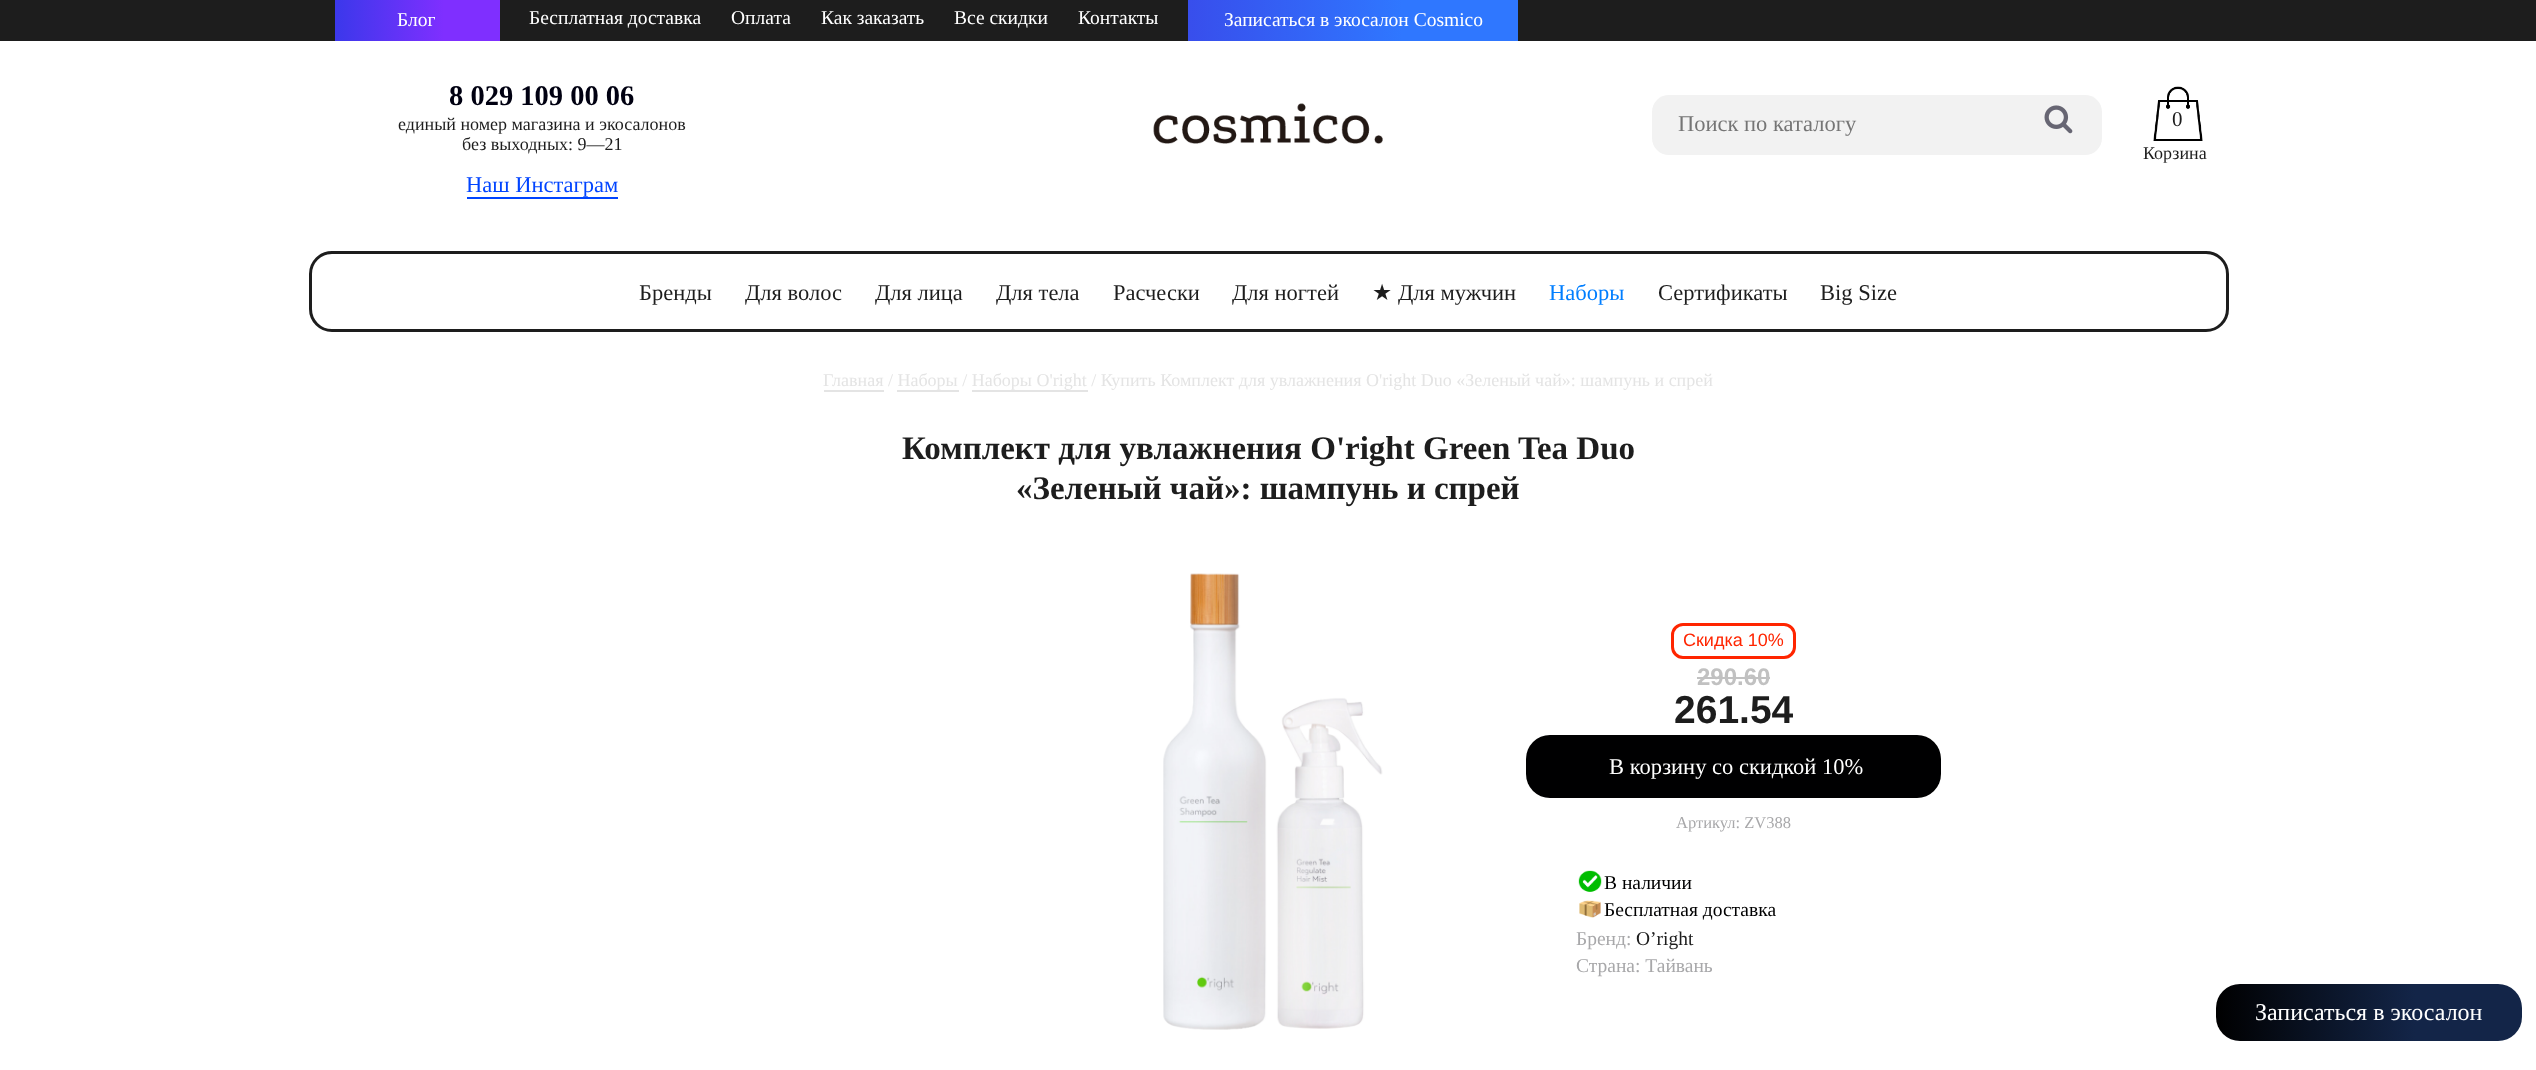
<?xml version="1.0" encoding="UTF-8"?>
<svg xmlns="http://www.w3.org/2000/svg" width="2536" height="1070">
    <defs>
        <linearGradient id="g1" gradientUnits="userSpaceOnUse" x1="335" y1="20" x2="500" y2="20"><stop offset="0" stop-color="#3B38EB"/><stop offset="0.66" stop-color="#7F2FFF"/></linearGradient>
        <linearGradient id="g2" gradientUnits="userSpaceOnUse" x1="1188" y1="20" x2="1518" y2="20"><stop offset="0" stop-color="#384EEC"/><stop offset="0.65" stop-color="#2F77FF"/></linearGradient>
        <linearGradient id="g3" gradientUnits="userSpaceOnUse" x1="2216" y1="1013" x2="2522" y2="1013"><stop offset="0" stop-color="#000000"/><stop offset="0.65" stop-color="#132548"/></linearGradient>
    </defs>
    <rect width="100%" height="100%" fill="#FFFFFF"/>
    <rect x="0" y="0" width="2536" height="41" fill="#1D1D1D"/>
    <rect x="335" y="0" width="165" height="41" fill="url(#g1)"/>
    <text x="397" y="26" font-family="Liberation Serif" font-size="19.5" fill="#FFFFFF">Блог</text>
    <text x="529" y="24" font-family="Liberation Serif" font-size="19.5" fill="#FFFFFF">Бесплатная доставка</text>
    <text x="731" y="24" font-family="Liberation Serif" font-size="19.5" fill="#FFFFFF">Оплата</text>
    <text x="821" y="24" font-family="Liberation Serif" font-size="19.5" fill="#FFFFFF">Как заказать</text>
    <text x="954" y="24" font-family="Liberation Serif" font-size="19.5" fill="#FFFFFF">Все скидки</text>
    <text x="1078" y="24" font-family="Liberation Serif" font-size="19.5" fill="#FFFFFF">Контакты</text>
    <rect x="1188" y="0" width="330" height="41" fill="url(#g2)"/>
    <text x="1224" y="26" font-family="Liberation Serif" font-size="19.5" fill="#FFFFFF">Записаться в экосалон Cosmico</text>
    <text x="449" y="105" font-family="Liberation Serif" font-size="28.5" font-weight="700" fill="#000011">8 029 109 00 06</text>
    <text x="398" y="130" font-family="Liberation Serif" font-size="18" fill="#1D1D1D">единый номер магазина и экосалонов</text>
    <text x="462" y="150" font-family="Liberation Serif" font-size="18" fill="#1D1D1D">без выходных: 9—21</text>
    <text x="466" y="192" font-family="Liberation Serif" font-size="22.5" fill="#0044FF">Наш Инстаграм</text>
    <rect x="467" y="197" width="151" height="2" fill="#0044FF"/>
    <image x="1153" y="103" width="230" height="41" href="img_01.png"/>
    <path d="M 1669 95 H 2084 V 155 H 1669 C 1659.5 155 1652 147.5 1652 138 V 112 C 1652 102.5 1659.5 95 1669 95 Z" fill="#F2F2F2"/>
    <text x="1678" y="131" font-family="Liberation Serif" font-size="22.5" fill="#757575">Поиск по каталогу</text>
    <path d="M 2030 95 H 2085 C 2094.5 95 2102 102.5 2102 112 V 138 C 2102 147.5 2094.5 155 2085 155 H 2030 Z" fill="#F2F2F2"/>
    <image x="2044" y="105" width="29" height="29" href="img_02.png"/>
    <image x="2153" y="86" width="50" height="55" href="img_03.png"/>
    <text x="2172" y="126" font-family="Liberation Serif" font-size="21" fill="#1D1D1D">0</text>
    <text x="2143" y="159" font-family="Liberation Serif" font-size="18" fill="#1D1D1D">Корзина</text>
    <rect x="310.5" y="252.5" width="1917" height="78" rx="21.5" fill="none" stroke="#1D1D1D" stroke-width="3"/>
    <text x="639" y="300" font-family="Liberation Serif" font-size="22.5" fill="#1D1D1D">Бренды</text>
    <text x="745" y="300" font-family="Liberation Serif" font-size="22.5" fill="#1D1D1D">Для волос</text>
    <text x="875" y="300" font-family="Liberation Serif" font-size="22.5" fill="#1D1D1D">Для лица</text>
    <text x="996" y="300" font-family="Liberation Serif" font-size="22.5" fill="#1D1D1D">Для тела</text>
    <text x="1113" y="300" font-family="Liberation Serif" font-size="22.5" fill="#1D1D1D">Расчески</text>
    <text x="1232" y="300" font-family="Liberation Serif" font-size="22.5" fill="#1D1D1D">Для ногтей</text>
    <text x="1372" y="300" font-family="DejaVu Sans" font-size="22.5" fill="#1D1D1D">★</text>
    <text x="1398" y="300" font-family="Liberation Serif" font-size="22.5" fill="#1D1D1D">Для мужчин</text>
    <text x="1549" y="300" font-family="Liberation Serif" font-size="22.5" fill="#007EFF">Наборы</text>
    <text x="1658" y="300" font-family="Liberation Serif" font-size="22.5" fill="#1D1D1D">Сертификаты</text>
    <text x="1820" y="300" font-family="Liberation Serif" font-size="22.5" fill="#1D1D1D">Big Size</text>
    <text x="823" y="386" font-family="Liberation Serif" font-size="18" fill="#E4E4E4">Главная / Наборы / Наборы O'right / Купить Комплект для увлажнения O'right Duo «Зеленый чай»: шампунь и спрей</text>
    <rect x="824" y="390" width="60" height="2" fill="#E4E4E4"/>
    <rect x="897" y="390" width="62" height="2" fill="#E4E4E4"/>
    <rect x="972" y="390" width="116" height="2" fill="#E4E4E4"/>
    <text x="902" y="459" font-family="Liberation Serif" font-size="33" font-weight="700" fill="#1D1D1D">Комплект для увлажнения O'right Green Tea Duo</text>
    <text x="1016" y="499" font-family="Liberation Serif" font-size="33" font-weight="700" fill="#1D1D1D">«Зеленый чай»: шампунь и спрей</text>
    <image x="1163" y="573" width="220" height="457" href="img_04.png"/>
    <rect x="1672.5" y="624.5" width="122" height="33" rx="10.5" fill="none" stroke="#FF2500" stroke-width="3"/>
    <text x="1683" y="646" font-family="Liberation Sans" font-size="18" fill="#FF2500">Скидка 10%</text>
    <text x="1697" y="685" font-family="Liberation Sans" font-size="24" font-weight="700" fill="#C1C1C1">290.60</text>
    <rect x="1697" y="677" width="73" height="2" fill="#C1C1C1"/>
    <text x="1674" y="723" font-family="Liberation Sans" font-size="39" font-weight="700" fill="#1D1D1D">261.54</text>
    <rect x="1526" y="735" width="415" height="63" rx="24" fill="#000001"/>
    <text x="1609" y="774" font-family="Liberation Serif" font-size="22.5" fill="#FFFFFF">В корзину со cкидкой 10%</text>
    <text x="1676" y="828" font-family="Liberation Serif" font-size="16.5" fill="#A8A8AA">Артикул: ZV388</text>
    <image x="1578" y="870" width="24" height="22" href="img_05.png"/>
    <text x="1604" y="889" font-family="Liberation Serif" font-size="19.5" fill="#000001">В наличии</text>
    <image x="1579" y="900" width="22" height="18" href="img_06.png"/>
    <text x="1604" y="916" font-family="Liberation Serif" font-size="19.5" fill="#000001">Бесплатная доставка</text>
    <text x="1576" y="945" font-family="Liberation Serif" font-size="19.5" fill="#A8A8AA">Бренд:</text>
    <text x="1636" y="945" font-family="Liberation Serif" font-size="19.5" fill="#1D1D1D">O’right</text>
    <text x="1576" y="972" font-family="Liberation Serif" font-size="19.5" fill="#A8A8AA">Страна: Тайвань</text>
    <rect x="2216" y="984" width="306" height="57" rx="24" fill="url(#g3)"/>
    <text x="2255" y="1020" font-family="Liberation Serif" font-size="24" fill="#FFFFFF">Записаться в экосалон</text>
</svg>
